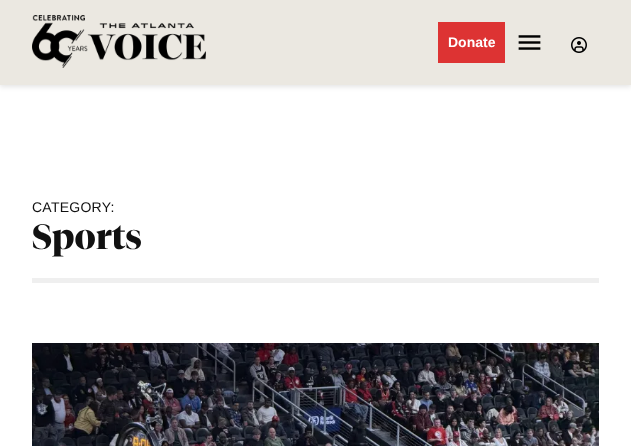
<?xml version="1.0" encoding="UTF-8"?>
<svg xmlns="http://www.w3.org/2000/svg" width="631" height="446">
    <defs>
        <filter id="blur1" x="-50%" y="-200%" width="200%" height="500%"><feGaussianBlur stdDeviation="2.5"/></filter>
    </defs>
    <rect width="100%" height="100%" fill="#FFFFFF"/>
    <rect x="0" y="2" width="631" height="85" fill="#000000" fill-opacity="0.1" filter="url(#blur1)"/>
    <rect x="0" y="0" width="631" height="85" fill="#EBE8E1"/>
    <image x="32" y="15" width="174" height="53" href="img_01.png"/>
    <rect x="438" y="22" width="67" height="41" fill="#DD3333"/>
    <text x="448" y="47" font-family="Liberation Sans" font-size="14" font-weight="700" fill="#FFFFFF">Donate</text>
    <image x="518" y="35" width="23" height="15" href="img_02.png"/>
    <image x="571" y="37" width="16" height="16" href="img_03.png"/>
    <rect x="32" y="278" width="567" height="5" fill="#EFEFEF"/>
    <text x="32" y="212" font-family="Liberation Sans" font-size="14" letter-spacing="0.25" fill="#111111">CATEGORY:</text>
    <text x="32" y="249" font-family="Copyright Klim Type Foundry" font-size="35" font-weight="700" letter-spacing="0.25" fill="#111111">Sports</text>
    <image x="32" y="343" width="567" height="103" href="img_04.png"/>
</svg>
